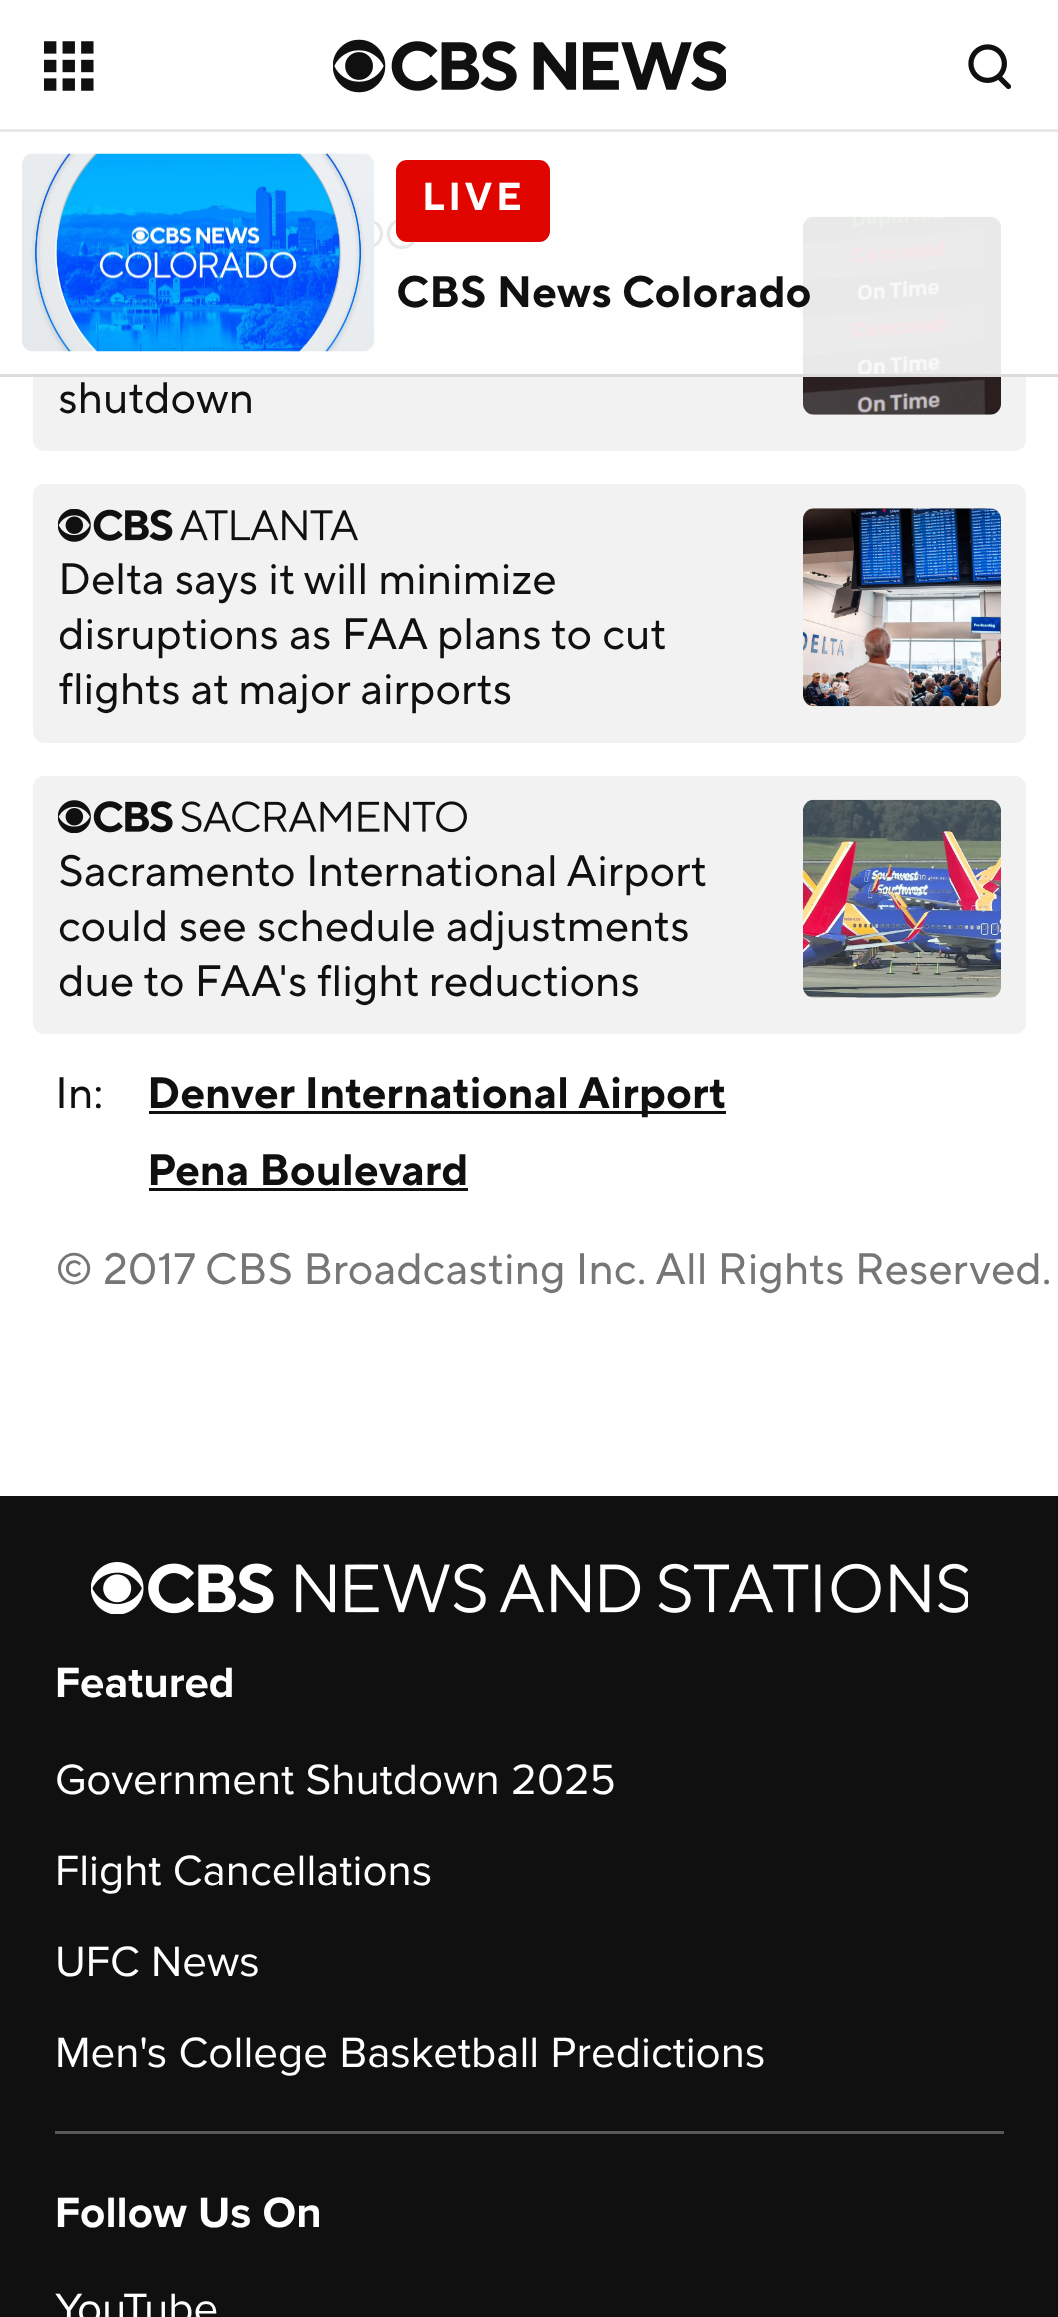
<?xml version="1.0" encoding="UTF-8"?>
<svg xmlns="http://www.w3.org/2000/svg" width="1058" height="2317">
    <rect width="100%" height="100%" fill="#FFFFFF"/>
    <rect x="34.5" y="-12.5" width="990" height="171" rx="9.5" fill="#F2F2F2" stroke="#F2F2F2" stroke-width="3"/>
    <rect x="33" y="0" width="993" height="129" fill="#FFFFFF"/>
    <rect x="0" y="129" width="1058" height="3" fill="#E8E8E8"/>
    <image x="44" y="41" width="50" height="50" href="img_01.png"/>
    <image x="333" y="39" width="393" height="54" href="img_02.png"/>
    <image x="968" y="44" width="44" height="46" href="img_03.png"/>
    <rect x="34.5" y="194.5" width="990" height="255" rx="9.5" fill="#F2F2F2" stroke="#F2F2F2" stroke-width="3"/>
    <image x="374" y="219" width="41" height="31" href="img_05.png"/>
    <image x="803" y="216" width="198" height="199" href="img_06.png"/>
    <rect x="33" y="132" width="993" height="242" fill="#FFFFFF" fill-opacity="0.9"/>
    <rect x="0" y="374" width="1058" height="3" fill="#DCDCDC"/>
    <image x="22" y="153" width="352" height="199" href="img_04.png"/>
    <rect x="396" y="160" width="154" height="82" rx="11" fill="#E10500"/>
    <text x="422" y="210" font-family="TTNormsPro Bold" font-size="39" font-weight="700" letter-spacing="3.5" fill="#FFFFFF">LIVE</text>
    <text x="396" y="307" font-family="TTNormsPro Bold" font-size="44" font-weight="700" fill="#101010">CBS News Colorado</text>
    <text x="58" y="413" font-family="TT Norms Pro" font-size="44" fill="#101010">shutdown</text>
    <rect x="34.5" y="485.5" width="990" height="256" rx="9.5" fill="#F2F2F2" stroke="#F2F2F2" stroke-width="3"/>
    <image x="58" y="509" width="300" height="33" href="img_07.png"/>
    <text font-family="TT Norms Pro" font-size="44" fill="#101010">
        <tspan x="58" y="594">Delta says it will minimize</tspan>
        <tspan x="58" y="649">disruptions as FAA plans to cut</tspan>
        <tspan x="58" y="704">flights at major airports</tspan>
    </text>
    <image x="803" y="508" width="198" height="199" href="img_08.png"/>
    <rect x="34.5" y="777.5" width="990" height="255" rx="9.5" fill="#F2F2F2" stroke="#F2F2F2" stroke-width="3"/>
    <image x="58" y="800" width="409" height="33" href="img_09.png"/>
    <text font-family="TT Norms Pro" font-size="44" fill="#101010">
        <tspan x="58" y="886">Sacramento International Airport</tspan>
        <tspan x="58" y="941">could see schedule adjustments</tspan>
        <tspan x="58" y="996">due to FAA's flight reductions</tspan>
    </text>
    <image x="803" y="799" width="198" height="199" href="img_10.png"/>
    <text x="55" y="1108" font-family="TT Norms Pro" font-size="44" fill="#101010">In:</text>
    <rect x="149" y="1111" width="577" height="3" fill="#101010"/>
    <text font-family="TTNormsPro Bold" font-size="44" font-weight="700" fill="#101010">
        <tspan x="147" y="1108">Denver International Airport</tspan>
        <tspan x="147" y="1185">Pena Boulevard</tspan>
    </text>
    <rect x="149" y="1188" width="319" height="3" fill="#101010"/>
    <text x="55" y="1284" font-family="TT Norms Pro" font-size="44" fill="#767676">© 2017 CBS Broadcasting Inc. All Rights Reserved.</text>
    <rect x="0" y="1496" width="1058" height="821" fill="#101010"/>
    <image x="91" y="1562" width="877" height="52" href="img_11.png"/>
    <rect x="55" y="2131" width="949" height="3" fill="#585858"/>
    <text x="55" y="1697" font-family="Proxima Nova" font-size="44" font-weight="700" fill="#FFFFFF">Featured</text>
    <text x="55" y="1794" font-family="Proxima Nova" font-size="44" fill="#FFFFFF">Government Shutdown 2025</text>
    <text x="55" y="1885" font-family="Proxima Nova" font-size="44" fill="#FFFFFF">Flight Cancellations</text>
    <text x="55" y="1976" font-family="Proxima Nova" font-size="44" fill="#FFFFFF">UFC News</text>
    <text x="55" y="2067" font-family="Proxima Nova" font-size="44" fill="#FFFFFF">Men's College Basketball Predictions</text>
    <text x="55" y="2227" font-family="Proxima Nova" font-size="44" font-weight="700" fill="#FFFFFF">Follow Us On</text>
    <text x="55" y="2323" font-family="Proxima Nova" font-size="44" fill="#FFFFFF">YouTube</text>
</svg>
